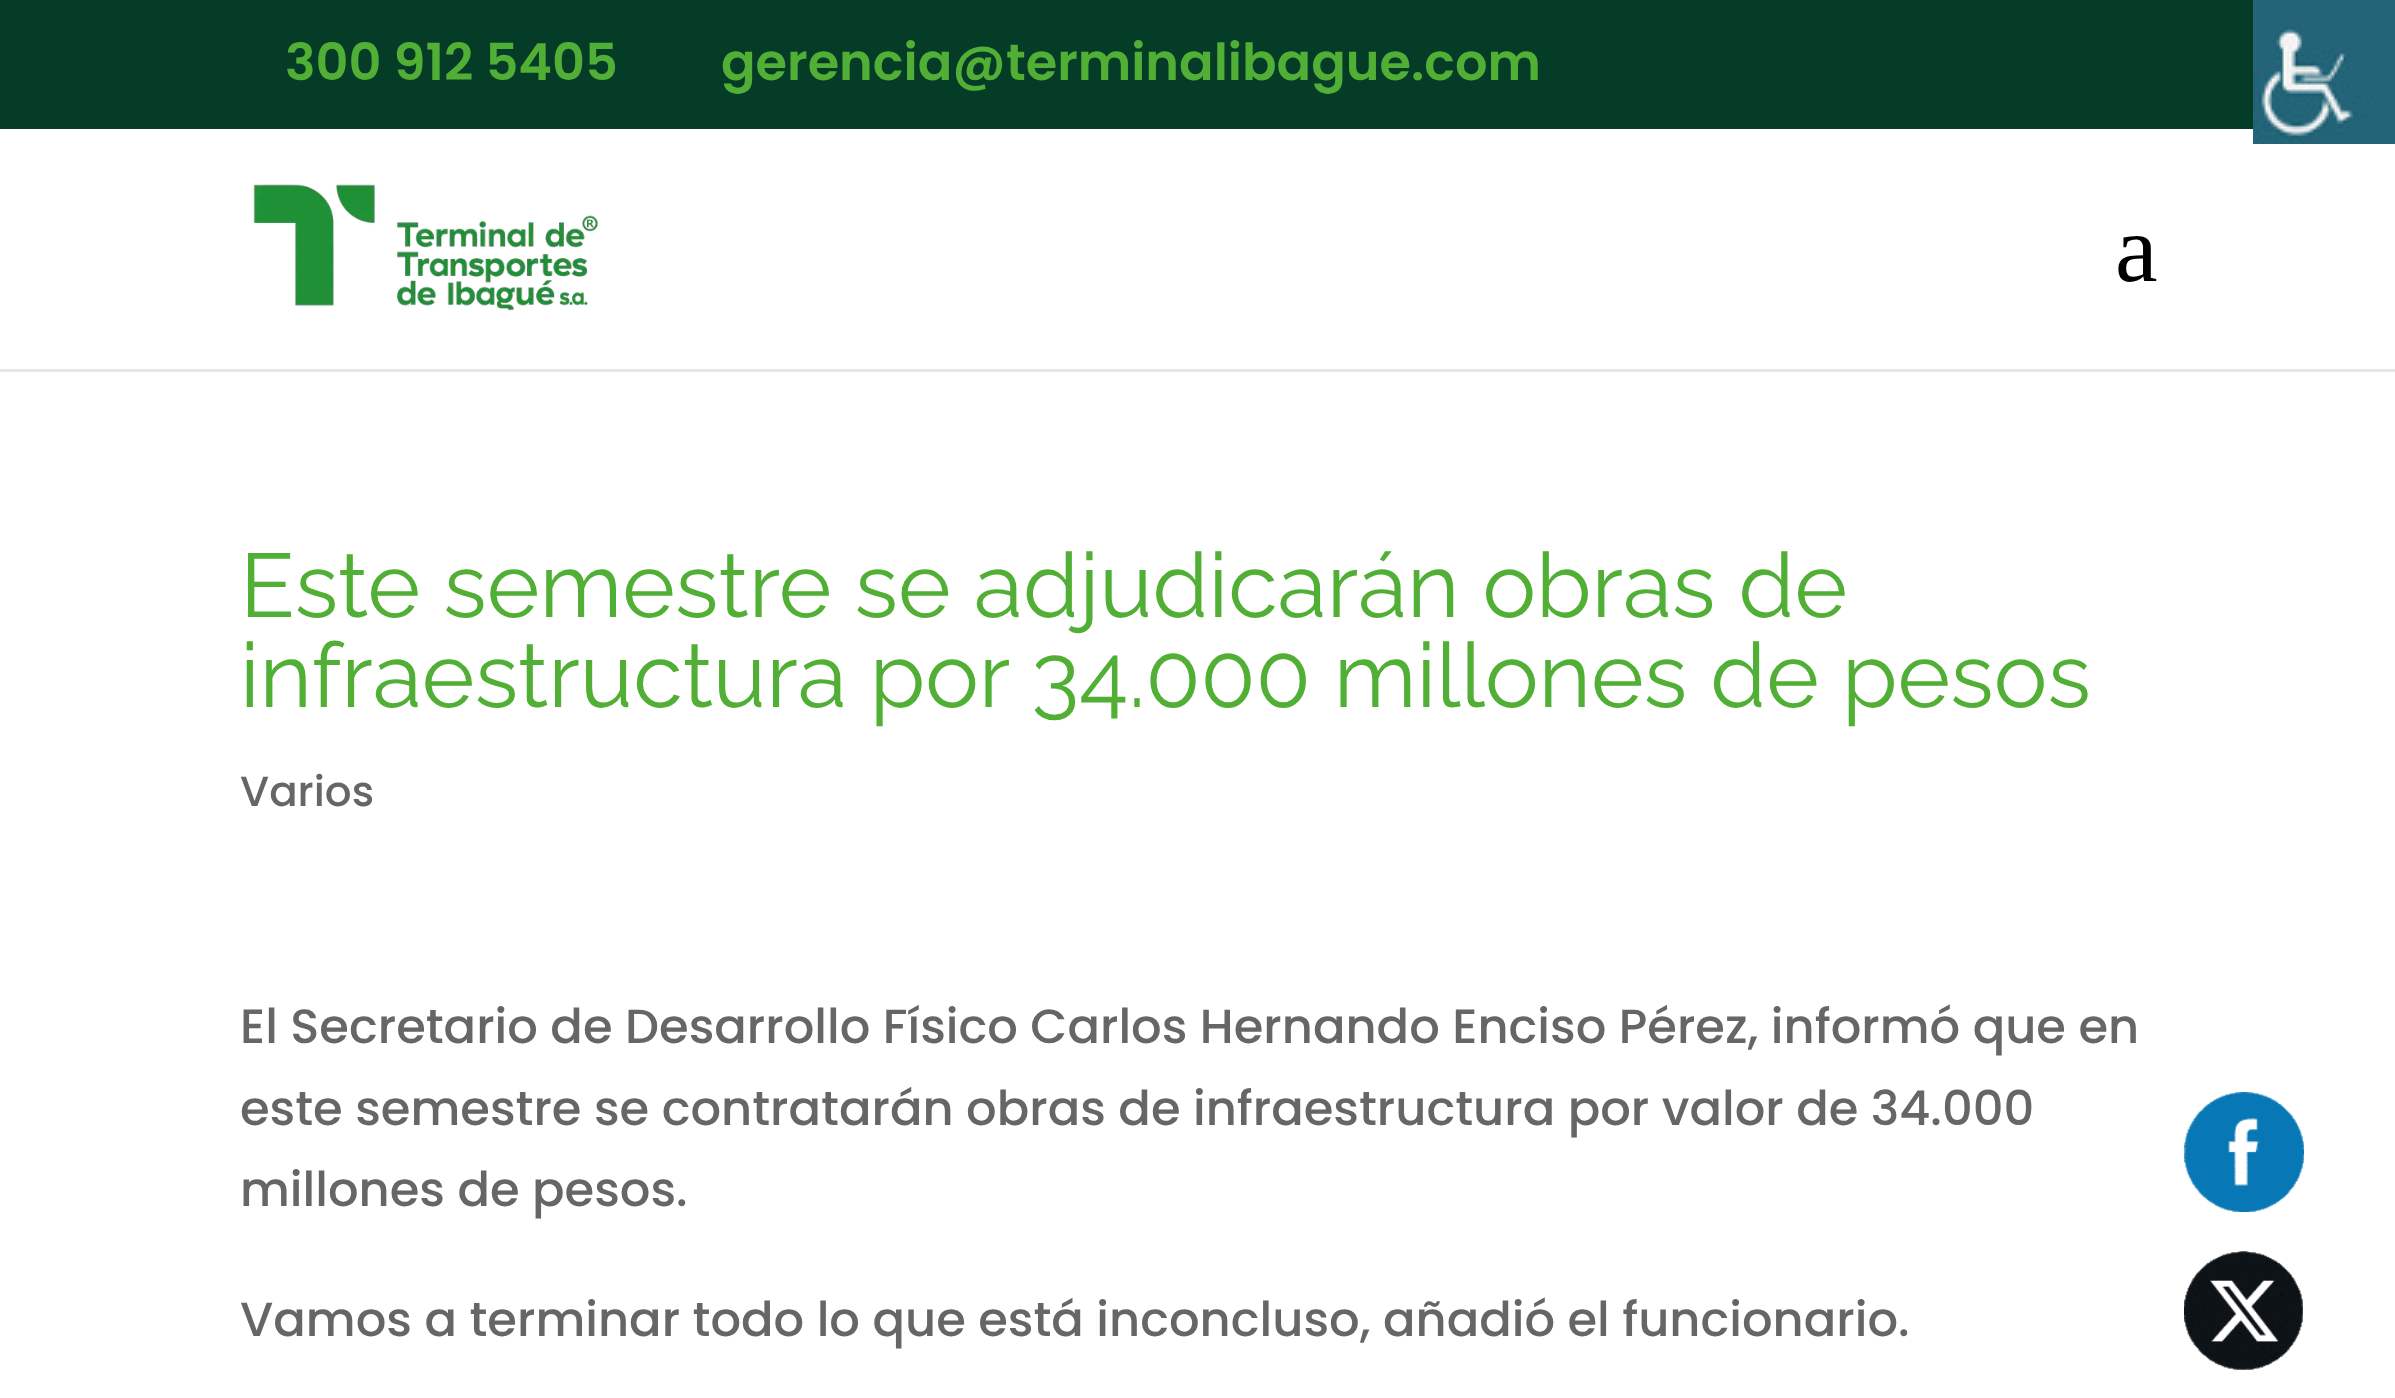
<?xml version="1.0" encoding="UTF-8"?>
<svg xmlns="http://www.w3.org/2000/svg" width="2395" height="1398">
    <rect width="100%" height="100%" fill="#FFFFFF"/>
    <rect x="0" y="0" width="2253" height="129" fill="#053C27"/>
    <text x="285" y="80" font-family="Poppins" font-size="51" font-weight="600" fill="#51AF35">300 912 5405</text>
    <text x="721" y="80" font-family="Poppins" font-size="51" font-weight="600" fill="#51AF35">gerencia@terminalibague.com</text>
    <rect x="0" y="369" width="2395" height="3" fill="#E6E6E6"/>
    <image x="253" y="184" width="345" height="127" href="img_01.png"/>
    <text x="2115" y="281" font-family="Liberation Serif" font-size="96" fill="#000000">a</text>
    <text font-family="Raleway" font-size="90" fill="#51AF35">
        <tspan x="240" y="617">Este semestre se adjudicarán obras de</tspan>
        <tspan x="240" y="707">infraestructura por 34.000 millones de pesos</tspan>
    </text>
    <text x="240" y="806" font-family="Poppins" font-size="42" font-weight="500" fill="#666666">Varios</text>
    <text font-family="Poppins" font-size="48" font-weight="500" fill="#666666">
        <tspan x="240" y="1043">El Secretario de Desarrollo Físico Carlos Hernando Enciso Pérez, informó que en</tspan>
        <tspan x="240" y="1125">este semestre se contratarán obras de infraestructura por valor de 34.000</tspan>
        <tspan x="240" y="1206">millones de pesos.</tspan>
    </text>
    <text x="240" y="1336" font-family="Poppins" font-size="48" font-weight="500" fill="#666666">Vamos a terminar todo lo que está inconcluso, añadió el funcionario.</text>
    <image x="2184" y="1092" width="120" height="120" href="img_02.png"/>
    <image x="2184" y="1251" width="119" height="119" href="img_03.png"/>
    <image x="2253" y="0" width="142" height="144" href="img_04.png"/>
</svg>
